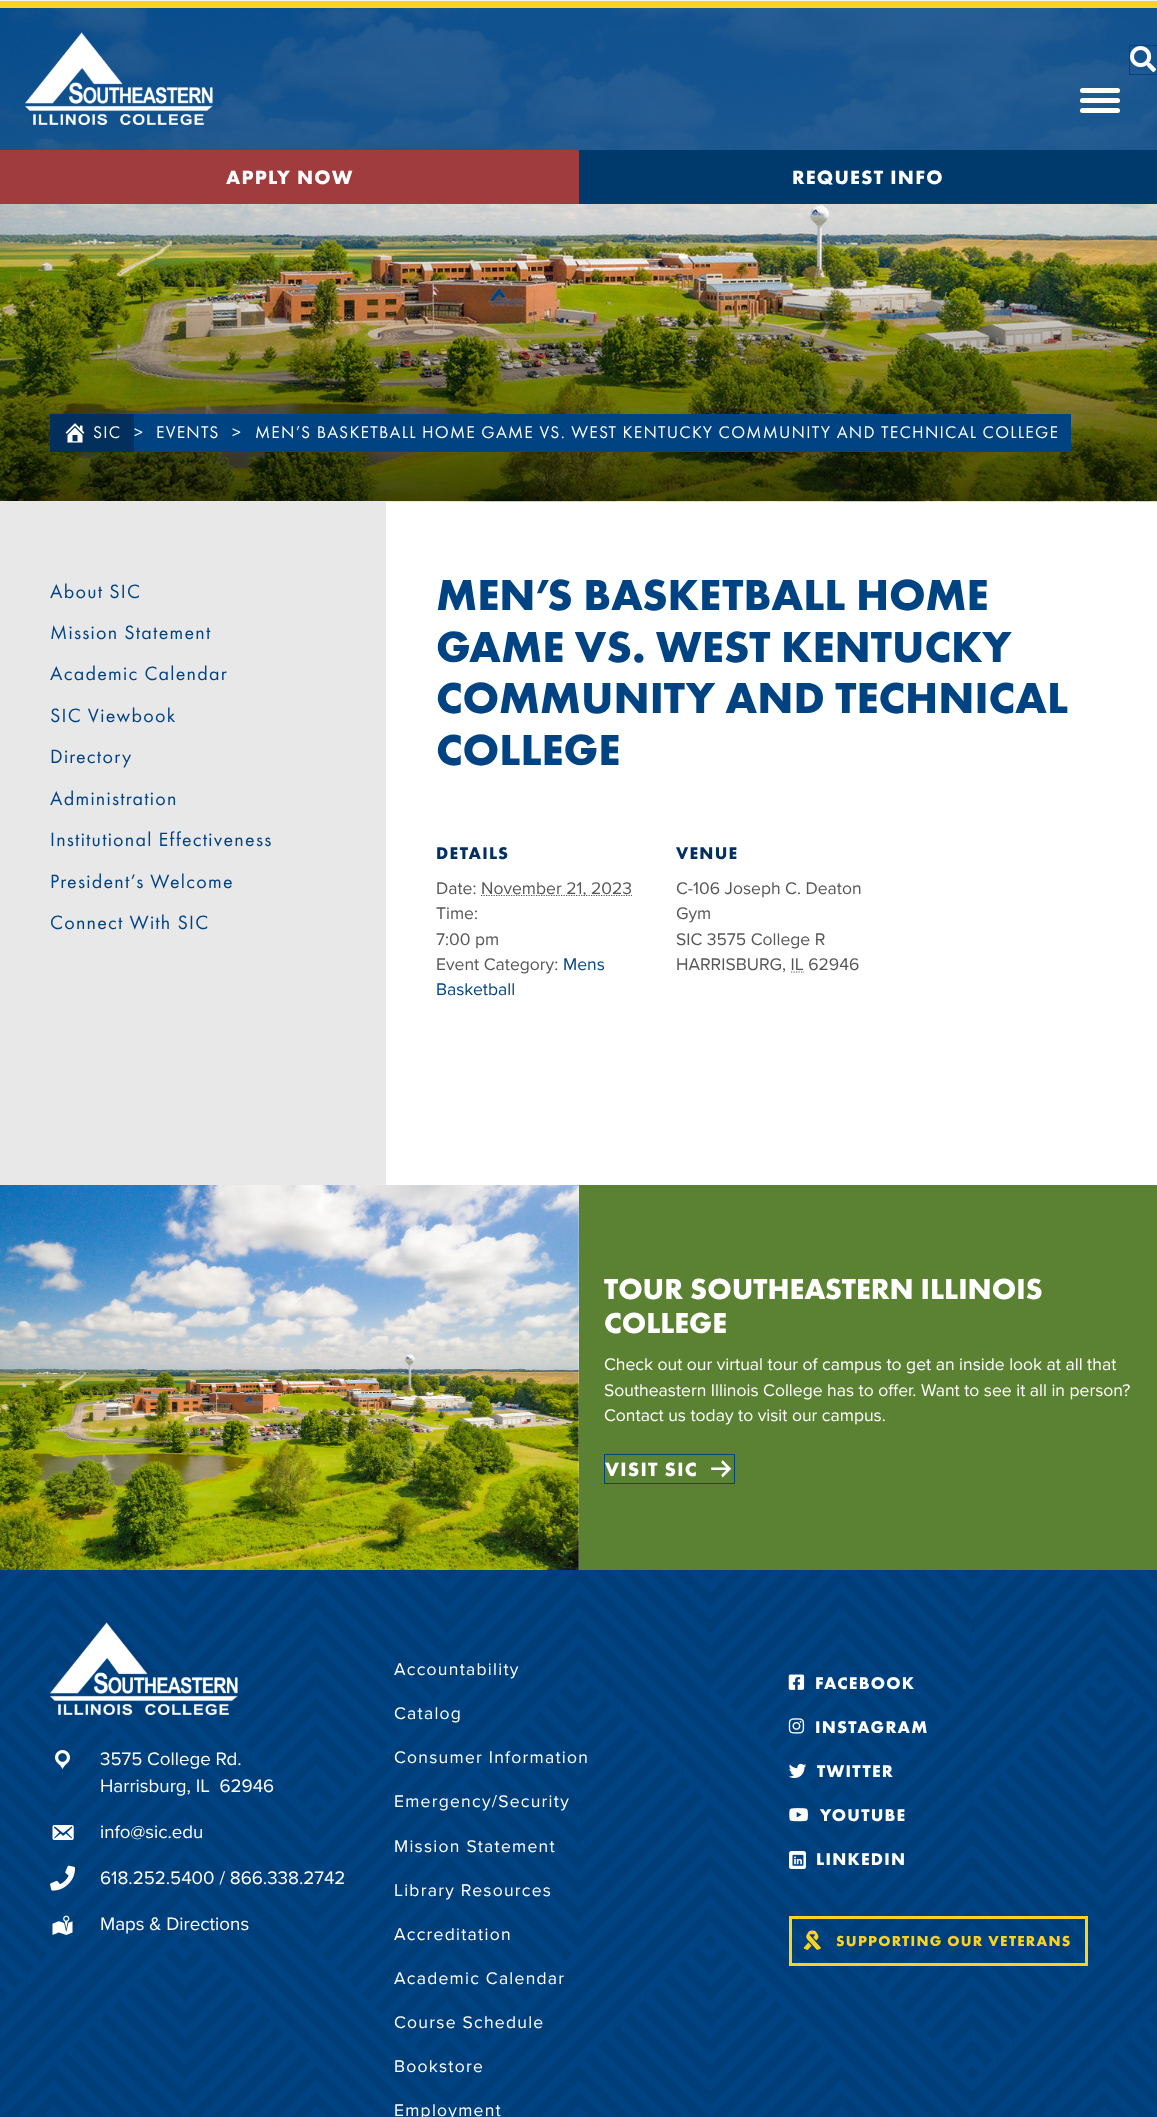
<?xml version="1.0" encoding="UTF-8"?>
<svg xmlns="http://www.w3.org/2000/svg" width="1157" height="2117">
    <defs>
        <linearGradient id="g1" gradientUnits="userSpaceOnUse" x1="579" y1="501" x2="579" y2="1.2"><stop offset="0" stop-color="#000000" stop-opacity="0.65"/><stop offset="0.5" stop-color="#000000" stop-opacity="0"/></linearGradient>
    </defs>
    <rect width="100%" height="100%" fill="#F2F2F2"/>
    <rect x="386" y="501" width="771" height="684" fill="#FFFFFF"/>
    <image x="0" y="8" width="1157" height="494" href="img_03.png"/>
    <rect x="0" y="8" width="1157" height="142" fill="#004383" fill-opacity="0.85"/>
    <rect x="0" y="1" width="1157" height="7" fill="#FCD41F"/>
    <image x="25" y="32" width="188" height="93" href="img_01.png"/>
    <rect x="1129.5" y="45.5" width="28" height="29" fill="none" stroke="#004383"/>
    <image x="1130" y="46" width="26" height="26" href="img_02.png"/>
    <rect x="1080" y="88" width="40" height="5" rx="2.5" fill="#FFFFFF"/>
    <rect x="1080" y="98" width="40" height="5" rx="2.5" fill="#FFFFFF"/>
    <rect x="1080" y="108" width="40" height="5" rx="2.5" fill="#FFFFFF"/>
    <rect x="0" y="150" width="579" height="54" fill="#A13C3E"/>
    <text x="226" y="184" font-family="Futura PT" font-size="20" font-weight="700" letter-spacing="1.25" fill="#FFFFFF">APPLY NOW</text>
    <rect x="579" y="150" width="578" height="54" fill="#003A6D"/>
    <text x="792" y="184" font-family="Futura PT" font-size="20" font-weight="700" letter-spacing="1.25" fill="#FFFFFF">REQUEST INFO</text>
    <rect x="0" y="259" width="1157" height="242" fill="url(#g1)"/>
    <rect x="50" y="414" width="84" height="38" fill="#032F5D"/>
    <image x="65" y="423" width="20" height="20" href="img_04.png"/>
    <text x="93" y="438" font-family="Futura PT" font-size="17.5" letter-spacing="1.25" fill="#FFFFFF">SIC</text>
    <rect x="134" y="414" width="10" height="37" fill="#004383"/>
    <text x="134" y="438" font-family="Futura PT" font-size="17.5" letter-spacing="1.25" fill="#FFFFFF">&gt;</text>
    <rect x="144" y="414" width="89" height="38" fill="#004383"/>
    <text x="156" y="438" font-family="Futura PT" font-size="17.5" letter-spacing="1.25" fill="#FFFFFF">EVENTS</text>
    <rect x="233" y="414" width="10" height="37" fill="#004383"/>
    <text x="232" y="438" font-family="Futura PT" font-size="17.5" letter-spacing="1.25" fill="#FFFFFF">&gt;</text>
    <rect x="243" y="414" width="828" height="38" fill="#004383"/>
    <text x="255" y="438" font-family="Futura PT" font-size="17.5" letter-spacing="1.25" fill="#FFFFFF">MEN’S BASKETBALL HOME GAME VS. WEST KENTUCKY COMMUNITY AND TECHNICAL COLLEGE</text>
    <rect x="0" y="501" width="386" height="684" fill="#E8E8E8"/>
    <text x="50" y="598" font-family="Futura PT" font-size="20" letter-spacing="1.25" fill="#004383">About SIC</text>
    <text x="50" y="639" font-family="Futura PT" font-size="20" letter-spacing="1.25" fill="#004383">Mission Statement</text>
    <text x="50" y="680" font-family="Futura PT" font-size="20" letter-spacing="1.25" fill="#004383">Academic Calendar</text>
    <text x="50" y="722" font-family="Futura PT" font-size="20" letter-spacing="1.25" fill="#004383">SIC Viewbook</text>
    <text x="50" y="763" font-family="Futura PT" font-size="20" letter-spacing="1.25" fill="#004383">Directory</text>
    <text x="50" y="805" font-family="Futura PT" font-size="20" letter-spacing="1.25" fill="#004383">Administration</text>
    <text x="50" y="846" font-family="Futura PT" font-size="20" letter-spacing="1.25" fill="#004383">Institutional Effectiveness</text>
    <text x="50" y="888" font-family="Futura PT" font-size="20" letter-spacing="1.25" fill="#004383">President’s Welcome</text>
    <text x="50" y="929" font-family="Futura PT" font-size="20" letter-spacing="1.25" fill="#004383">Connect With SIC</text>
    <text font-family="Futura PT" font-size="45" font-weight="700" fill="#004383">
        <tspan x="436" y="610">MEN’S BASKETBALL HOME</tspan>
        <tspan x="436" y="662">GAME VS. WEST KENTUCKY</tspan>
        <tspan x="436" y="713">COMMUNITY AND TECHNICAL</tspan>
        <tspan x="436" y="765">COLLEGE</tspan>
    </text>
    <text x="436" y="859" font-family="Futura PT" font-size="17.5" font-weight="700" letter-spacing="1.25" fill="#033061">DETAILS</text>
    <text x="436" y="894" font-family="Proxima Nova" font-size="17.5" fill="#565656">Date:</text>
    <path d="M 481 895.5 H 632" fill="none" stroke="#565656" stroke-width="1.2" stroke-dasharray="1.25 1.25"/>
    <text x="481" y="894" font-family="Proxima Nova" font-size="17.5" fill="#565656">November 21, 2023</text>
    <text font-family="Proxima Nova" font-size="17.5" fill="#565656">
        <tspan x="436" y="919">Time:</tspan>
        <tspan x="436" y="945">7:00 pm</tspan>
        <tspan x="436" y="970">Event Category:</tspan>
    </text>
    <text x="563" y="970" font-family="Proxima Nova" font-size="17.5" fill="#004383">Mens</text>
    <text x="436" y="995" font-family="Proxima Nova" font-size="17.5" fill="#004383">Basketball</text>
    <text x="676" y="859" font-family="Futura PT" font-size="17.5" font-weight="700" letter-spacing="1.25" fill="#033061">VENUE</text>
    <text font-family="Proxima Nova" font-size="17.5" fill="#565656">
        <tspan x="676" y="894">C-106 Joseph C. Deaton</tspan>
        <tspan x="676" y="919">Gym</tspan>
        <tspan x="676" y="945">SIC 3575 College R</tspan>
        <tspan x="676" y="970">HARRISBURG, IL 62946</tspan>
    </text>
    <path d="M 791 972 H 804" fill="none" stroke="#565656" stroke-width="1.2" stroke-dasharray="1.25 1.25"/>
    <image x="0" y="1185" width="579" height="385" href="img_05.png"/>
    <rect x="579" y="1185" width="578" height="385" fill="#5B8132"/>
    <text font-family="Futura PT" font-size="30" font-weight="700" fill="#FFFFFF">
        <tspan x="604" y="1299">TOUR SOUTHEASTERN ILLINOIS</tspan>
        <tspan x="604" y="1333">COLLEGE</tspan>
    </text>
    <text font-family="Proxima Nova" font-size="17.5" fill="#FFFFFF">
        <tspan x="604" y="1370">Check out our virtual tour of campus to get an inside look at all that</tspan>
        <tspan x="604" y="1396">Southeastern Illinois College has to offer. Want to see it all in person?</tspan>
        <tspan x="604" y="1421">Contact us today to visit our campus.</tspan>
    </text>
    <rect x="604.5" y="1454.5" width="130" height="29" fill="none" stroke="#004383"/>
    <text x="605" y="1476" font-family="Futura PT" font-size="20" font-weight="700" letter-spacing="1.25" fill="#FFFFFF">VISIT SIC</text>
    <image x="711" y="1460" width="21" height="18" href="img_06.png"/>
    <rect x="0" y="1570" width="1157" height="547" fill="#004383"/>
    <image x="0" y="1570" width="1157" height="547" href="img_07.png"/>
    <image x="50" y="1622" width="188" height="93" href="img_08.png"/>
    <image x="55" y="1750" width="15" height="20" href="img_09.png"/>
    <text font-family="Proxima Nova" font-size="18.75" fill="#FFFFFF" xml:space="preserve"><tspan x="100" y="1765">3575 College Rd.</tspan><tspan x="100" y="1792">Harrisburg, IL  62946</tspan></text>
    <image x="52" y="1825" width="22" height="15" href="img_10.png"/>
    <text x="100" y="1838" font-family="Proxima Nova" font-size="18.75" fill="#FFFFFF">info@sic.edu</text>
    <image x="50" y="1865" width="25" height="26" href="img_11.png"/>
    <text x="100" y="1884" font-family="Proxima Nova" font-size="18.75" fill="#FFFFFF">618.252.5400 / 866.338.2742</text>
    <image x="52" y="1915" width="21" height="20" href="img_12.png"/>
    <text x="100" y="1930" font-family="Proxima Nova" font-size="18.75" fill="#FFFFFF">Maps &amp; Directions</text>
    <text x="394" y="1675" font-family="Proxima Nova" font-size="17.5" letter-spacing="1.25" fill="#FFFFFF">Accountability</text>
    <text x="394" y="1719" font-family="Proxima Nova" font-size="17.5" letter-spacing="1.25" fill="#FFFFFF">Catalog</text>
    <text x="394" y="1763" font-family="Proxima Nova" font-size="17.5" letter-spacing="1.25" fill="#FFFFFF">Consumer Information</text>
    <text x="394" y="1807" font-family="Proxima Nova" font-size="17.5" letter-spacing="1.25" fill="#FFFFFF">Emergency/Security</text>
    <text x="394" y="1852" font-family="Proxima Nova" font-size="17.5" letter-spacing="1.25" fill="#FFFFFF">Mission Statement</text>
    <text x="394" y="1896" font-family="Proxima Nova" font-size="17.5" letter-spacing="1.25" fill="#FFFFFF">Library Resources</text>
    <text x="394" y="1940" font-family="Proxima Nova" font-size="17.5" letter-spacing="1.25" fill="#FFFFFF">Accreditation</text>
    <text x="394" y="1984" font-family="Proxima Nova" font-size="17.5" letter-spacing="1.25" fill="#FFFFFF">Academic Calendar</text>
    <text x="394" y="2028" font-family="Proxima Nova" font-size="17.5" letter-spacing="1.25" fill="#FFFFFF">Course Schedule</text>
    <text x="394" y="2072" font-family="Proxima Nova" font-size="17.5" letter-spacing="1.25" fill="#FFFFFF">Bookstore</text>
    <text x="394" y="2116" font-family="Proxima Nova" font-size="17.5" letter-spacing="1.25" fill="#FFFFFF">Employment</text>
    <image x="788" y="1674" width="17" height="16" href="img_13.png"/>
    <text x="815" y="1689" font-family="Futura PT" font-size="17.5" font-weight="700" letter-spacing="1.25" fill="#FFFFFF">FACEBOOK</text>
    <image x="788" y="1718" width="17" height="16" href="img_14.png"/>
    <text x="815" y="1733" font-family="Futura PT" font-size="17.5" font-weight="700" letter-spacing="1.25" fill="#FFFFFF">INSTAGRAM</text>
    <image x="789" y="1763" width="18" height="16" href="img_15.png"/>
    <text x="817" y="1777" font-family="Futura PT" font-size="17.5" font-weight="700" letter-spacing="1.25" fill="#FFFFFF">TWITTER</text>
    <image x="789" y="1808" width="19" height="14" href="img_16.png"/>
    <text x="820" y="1821" font-family="Futura PT" font-size="17.5" font-weight="700" letter-spacing="1.25" fill="#FFFFFF">YOUTUBE</text>
    <rect x="789" y="1851" width="17" height="18" rx="2.5" fill="#FFFFFF"/>
    <image x="792" y="1854" width="12" height="12" href="img_17.png"/>
    <text x="816" y="1865" font-family="Futura PT" font-size="17.5" font-weight="700" letter-spacing="1.25" fill="#FFFFFF">LINKEDIN</text>
    <rect x="790.5" y="1917.5" width="296" height="47" fill="none" stroke="#FCD41F" stroke-width="3"/>
    <image x="803" y="1930" width="18" height="20" href="img_18.png"/>
    <text x="836" y="1946" font-family="Futura PT" font-size="15" font-weight="700" letter-spacing="1.25" fill="#FCD41F">SUPPORTING OUR VETERANS</text>
</svg>
